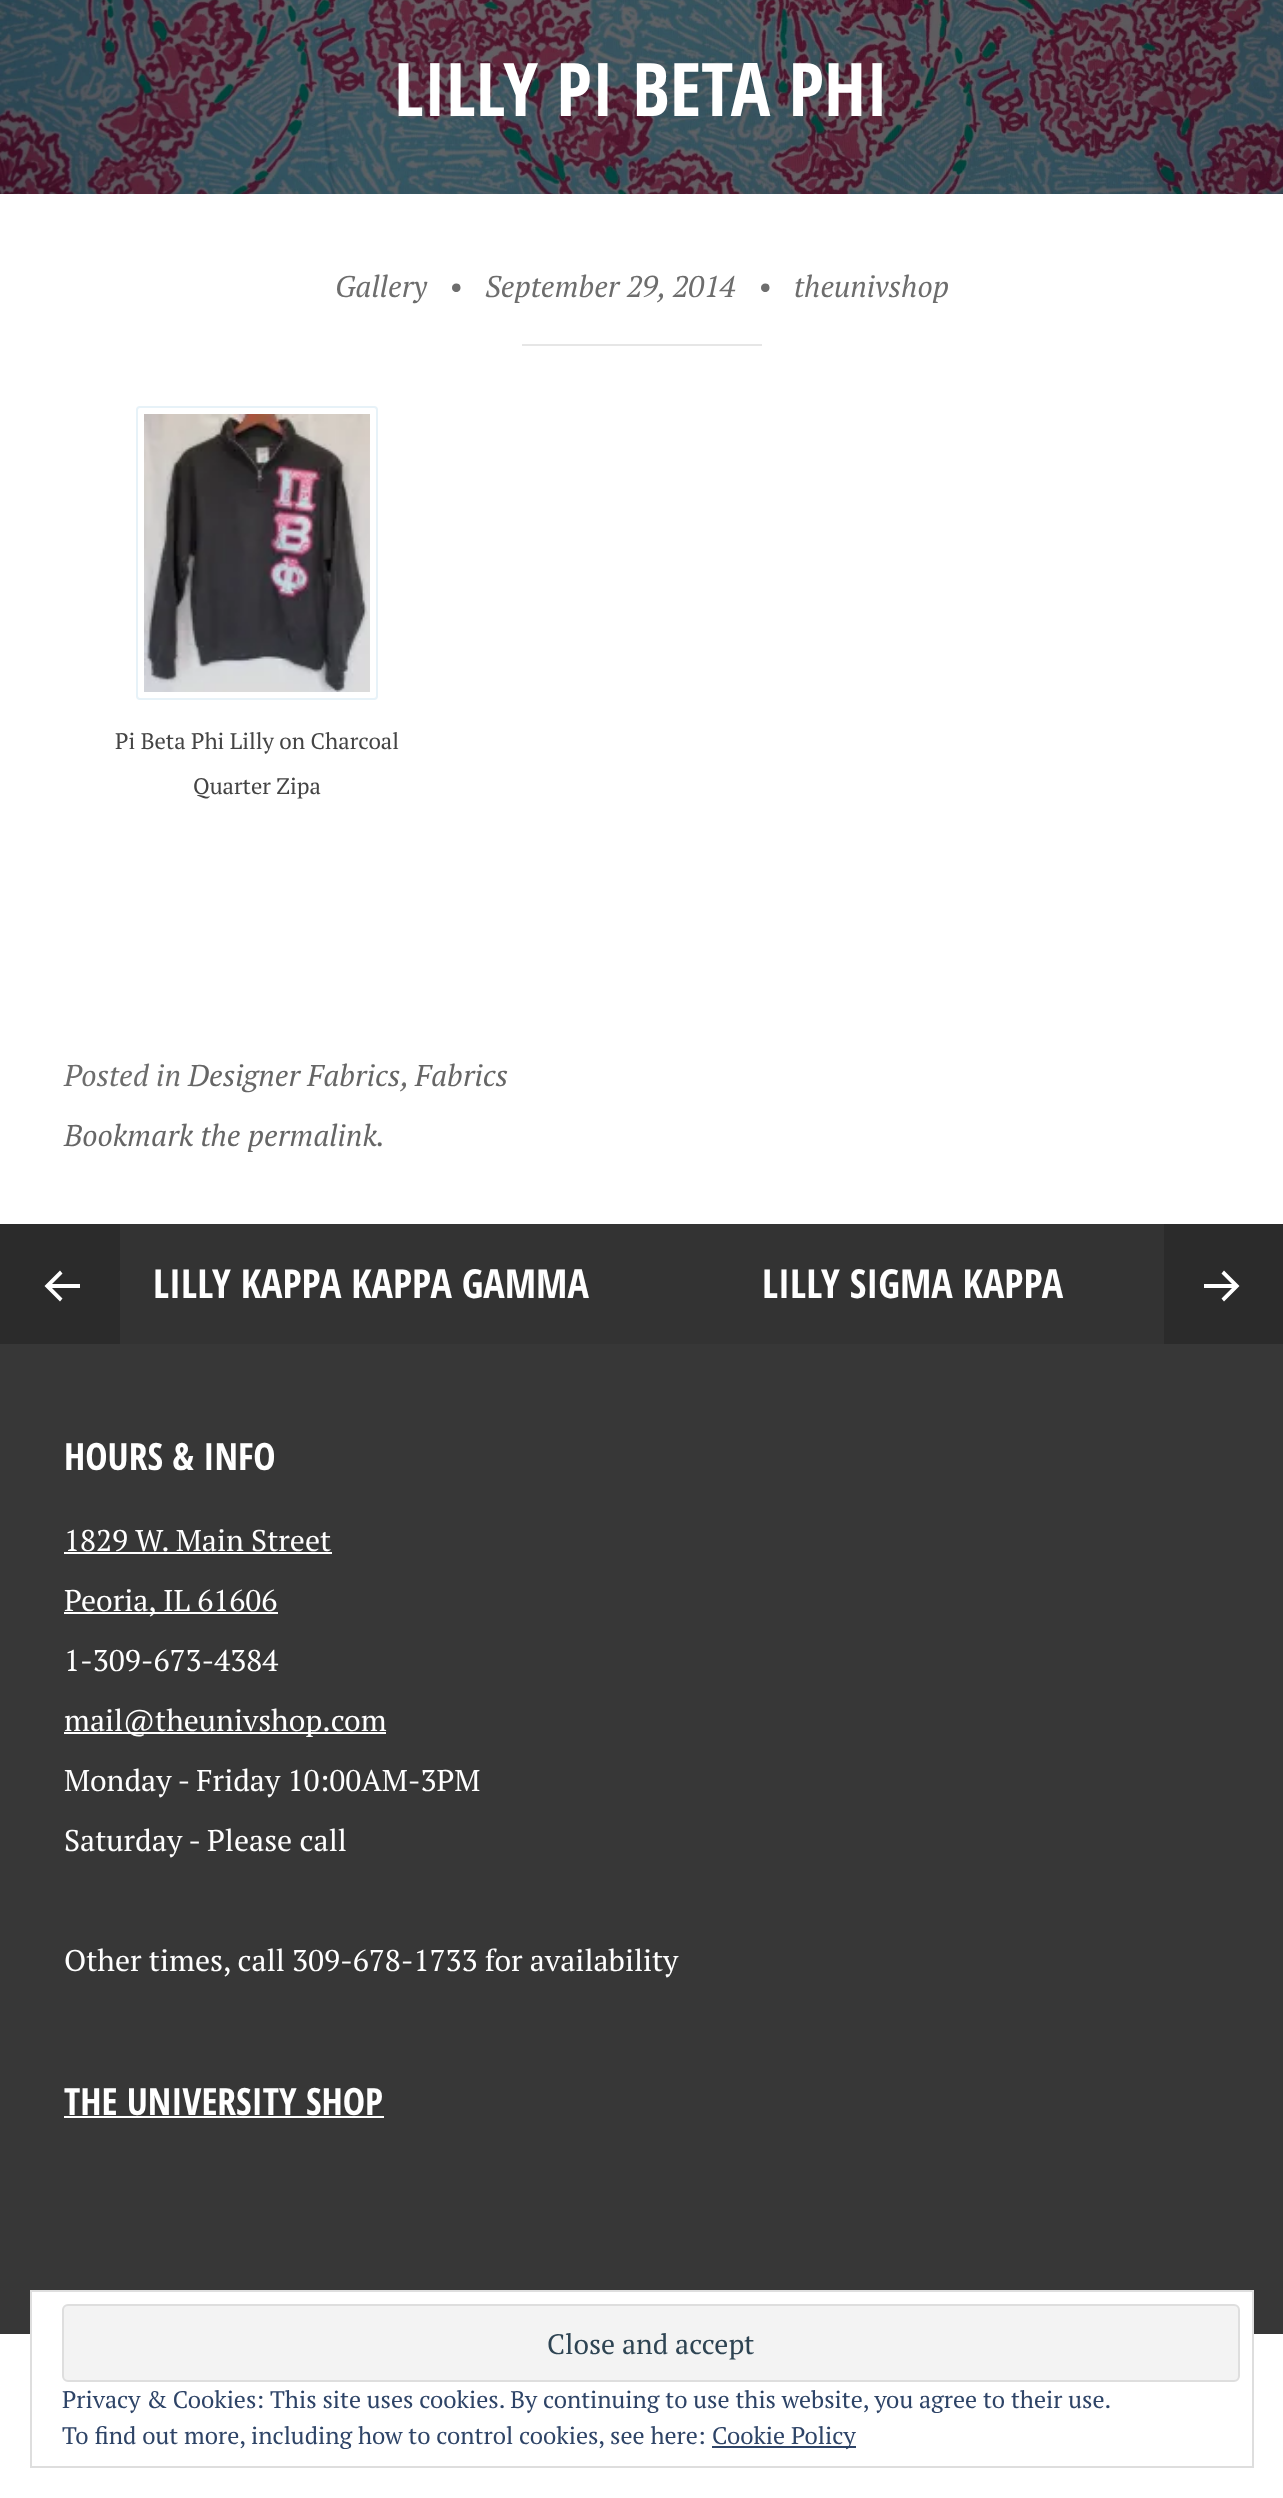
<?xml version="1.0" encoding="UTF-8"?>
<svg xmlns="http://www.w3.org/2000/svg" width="1283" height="2498">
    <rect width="100%" height="100%" fill="#FFFFFF"/>
    <image x="0" y="0" width="1283" height="194" href="img_01.png"/>
    <text x="394" y="116" font-family="Open Sans Condensed" font-size="74" font-weight="700" fill="#FFFFFF">LILLY PI BETA PHI</text>
    <text x="335" y="297" font-family="PT Serif" font-size="30" font-style="italic" fill="#6D6D6D">Gallery</text>
    <text x="449" y="297" font-family="PT Serif" font-size="30" font-style="italic" fill="#6D6D6D">•</text>
    <text x="485" y="297" font-family="PT Serif" font-size="30" font-style="italic" fill="#6D6D6D">September 29, 2014</text>
    <text x="758" y="297" font-family="PT Serif" font-size="30" font-style="italic" fill="#6D6D6D">•</text>
    <text x="794" y="297" font-family="PT Serif" font-size="30" font-style="italic" fill="#6D6D6D">theunivshop</text>
    <rect x="522" y="344" width="240" height="2" fill="#E6E6E6"/>
    <rect x="137" y="407" width="240" height="292" rx="3" fill="none" stroke="#E7F2F8" stroke-width="2"/>
    <image x="144" y="414" width="226" height="278" href="img_02.png"/>
    <text x="115" y="749" font-family="PT Serif" font-size="22.5" fill="#444444">Pi Beta Phi Lilly on Charcoal</text>
    <text x="193" y="794" font-family="PT Serif" font-size="22.5" fill="#444444">Quarter Zipa</text>
    <text x="64" y="1086" font-family="PT Serif" font-size="30" font-style="italic" fill="#6D6D6D">Posted in</text>
    <text x="188" y="1086" font-family="PT Serif" font-size="30" font-style="italic" fill="#666666">Designer Fabrics</text>
    <text x="401" y="1086" font-family="PT Serif" font-size="30" font-style="italic" fill="#6D6D6D">,</text>
    <text x="415" y="1086" font-family="PT Serif" font-size="30" font-style="italic" fill="#666666">Fabrics</text>
    <text x="64" y="1146" font-family="PT Serif" font-size="30" font-style="italic" fill="#666666">Bookmark the permalink.</text>
    <rect x="120" y="1224" width="1044" height="120" fill="#333333"/>
    <rect x="0" y="1224" width="120" height="120" fill="#2B2B2B"/>
    <path d="M 60 1270.5 L 62.5 1273.5 L 52 1284 H 80 V 1288 H 52 L 62.5 1298.5 L 60 1301.5 L 44.5 1286 Z" fill="#FFFFFF"/>
    <text x="153" y="1298" font-family="Open Sans Condensed" font-size="40" font-weight="700" fill="#FFFFFF">LILLY KAPPA KAPPA GAMMA</text>
    <text x="762" y="1298" font-family="Open Sans Condensed" font-size="40" font-weight="700" fill="#FFFFFF">LILLY SIGMA KAPPA</text>
    <rect x="1164" y="1224" width="119" height="120" fill="#2B2B2B"/>
    <path d="M 1224 1270.5 L 1239.5 1286 L 1224 1301.5 L 1221.5 1298.5 L 1232 1288 H 1204 V 1284 H 1232 L 1221.5 1273.5 Z" fill="#FFFFFF"/>
    <rect x="0" y="1344" width="1283" height="990" fill="#373737"/>
    <text x="64" y="1470" font-family="Open Sans Condensed" font-size="37.5" font-weight="700" fill="#FFFFFF">HOURS &amp; INFO</text>
    <text x="64" y="1551" font-family="PT Serif" font-size="30" fill="#FFFFFF">1829 W. Main Street</text>
    <rect x="64" y="1552" width="268" height="2" fill="#FFFFFF"/>
    <rect x="64" y="1612" width="214" height="2" fill="#FFFFFF"/>
    <text x="64" y="1611" font-family="PT Serif" font-size="30" fill="#FFFFFF">Peoria, IL 61606</text>
    <text x="64" y="1671" font-family="PT Serif" font-size="30" fill="#FFFFFF">1-309-673-4384</text>
    <rect x="64" y="1732" width="322" height="2" fill="#FFFFFF"/>
    <text x="64" y="1731" font-family="PT Serif" font-size="30" fill="#FFFFFF">mail@theunivshop.com</text>
    <text x="64" y="1791" font-family="PT Serif" font-size="30" fill="#FFFFFF">Monday - Friday 10:00AM-3PM</text>
    <text x="64" y="1851" font-family="PT Serif" font-size="30" fill="#FFFFFF">Saturday - Please call</text>
    <text x="64" y="1971" font-family="PT Serif" font-size="30" fill="#FFFFFF">Other times, call 309-678-1733 for availability</text>
    <text x="64" y="2115" font-family="Open Sans Condensed" font-size="37.5" font-weight="700" fill="#FFFFFF">THE UNIVERSITY SHOP</text>
    <rect x="64" y="2116" width="320" height="2" fill="#FFFFFF"/>
    <rect x="32" y="2292" width="1220" height="42" fill="#FFFFFF"/>
    <rect x="31" y="2291" width="1222" height="176" fill="none" stroke="#DEDEDE" stroke-width="2"/>
    <rect x="63" y="2305" width="1176" height="76" rx="5" fill="#F3F3F3" stroke="#DEDEDE" stroke-width="2"/>
    <text x="547" y="2354" font-family="PT Serif" font-size="28" fill="#2E4453">Close and accept</text>
    <text font-family="PT Serif" font-size="24" fill="#2E4467">
        <tspan x="62" y="2408">Privacy &amp; Cookies: This site uses cookies. By continuing to use this website, you agree to their use.</tspan>
        <tspan x="62" y="2444">To find out more, including how to control cookies, see here:</tspan>
    </text>
    <rect x="712" y="2446" width="144" height="2" fill="#2E4467"/>
    <text x="712" y="2444" font-family="PT Serif" font-size="24" fill="#2E4467">Cookie Policy</text>
</svg>
